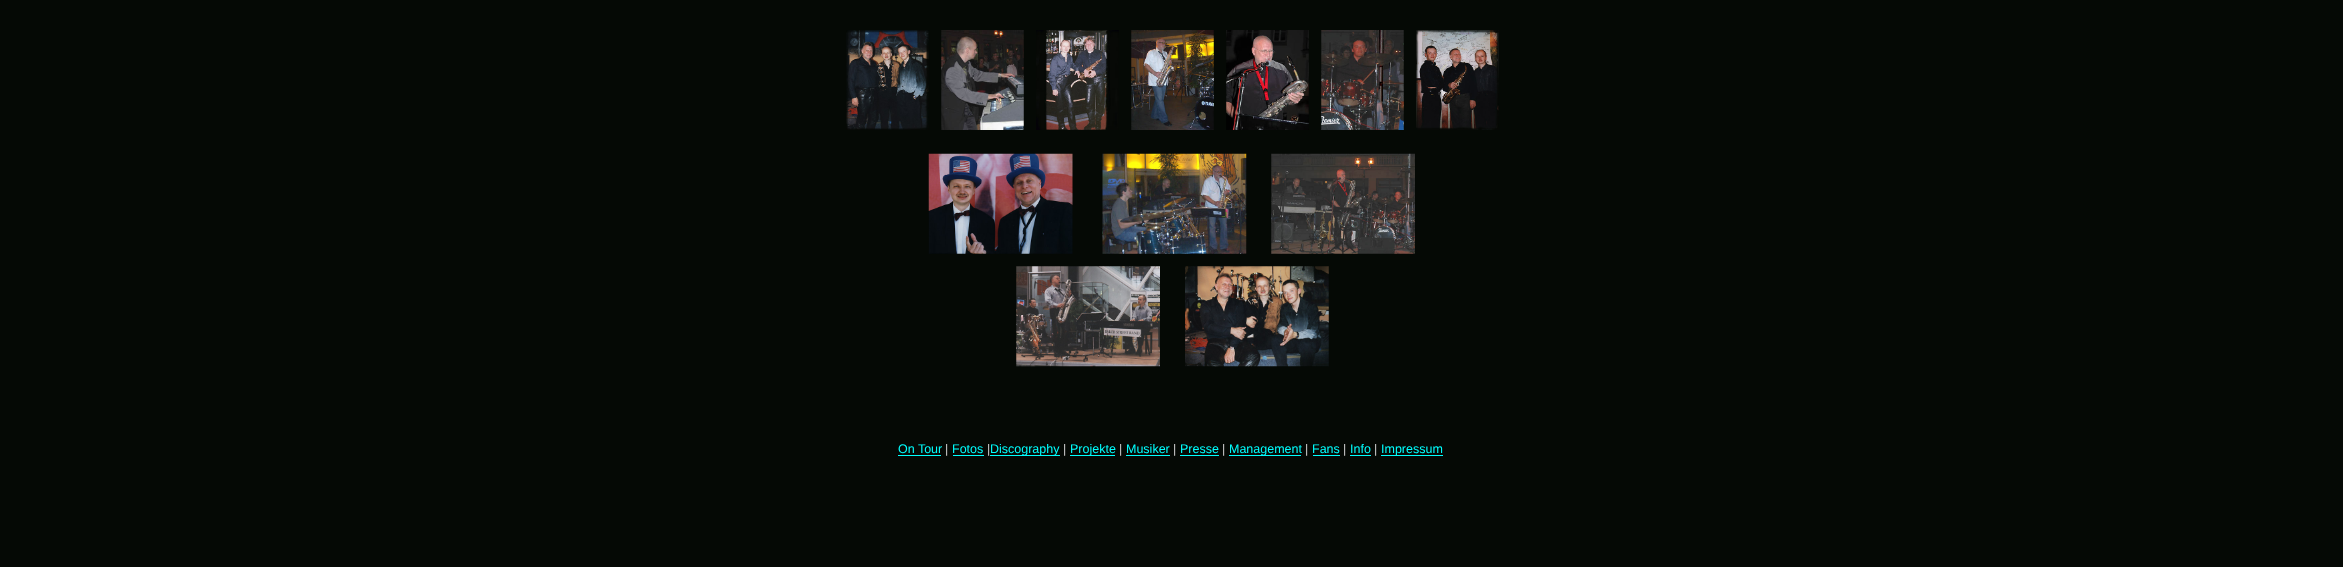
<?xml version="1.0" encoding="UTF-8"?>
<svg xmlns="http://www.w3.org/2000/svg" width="2343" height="567">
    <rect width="100%" height="100%" fill="#050905"/>
    <image x="846" y="30" width="83" height="100" href="img_01.png"/>
    <image x="941" y="30" width="83" height="100" href="img_02.png"/>
    <image x="1036" y="30" width="83" height="100" href="img_03.png"/>
    <image x="1131" y="30" width="83" height="100" href="img_04.png"/>
    <image x="1226" y="30" width="83" height="100" href="img_05.png"/>
    <image x="1321" y="30" width="83" height="100" href="img_06.png"/>
    <image x="1416" y="30" width="83" height="100" href="img_07.png"/>
    <image x="928" y="153" width="145" height="101" href="img_08.png"/>
    <image x="1102" y="153" width="145" height="101" href="img_09.png"/>
    <image x="1271" y="153" width="144" height="101" href="img_10.png"/>
    <image x="1016" y="266" width="144" height="101" href="img_11.png"/>
    <image x="1185" y="266" width="144" height="101" href="img_12.png"/>
    <text x="898" y="453" font-family="Liberation Sans" font-size="12.5" fill="#00FFFF">On Tour</text>
    <rect x="898" y="455" width="43" height="1" fill="#00FFFF"/>
    <text x="945" y="453" font-family="Liberation Sans" font-size="12.5" fill="#CCCCCC">|</text>
    <text x="952" y="453" font-family="Liberation Sans" font-size="12.5" fill="#00FFFF">Fotos</text>
    <rect x="953" y="455" width="31" height="1" fill="#00FFFF"/>
    <text x="987" y="453" font-family="Liberation Sans" font-size="12.5" fill="#CCCCCC">|</text>
    <rect x="990" y="455" width="70" height="1" fill="#00FFFF"/>
    <text x="990" y="453" font-family="Liberation Sans" font-size="12.5" fill="#00FFFF">Discography</text>
    <text x="1063" y="453" font-family="Liberation Sans" font-size="12.5" fill="#CCCCCC">|</text>
    <rect x="1070" y="455" width="45" height="1" fill="#00FFFF"/>
    <text x="1070" y="453" font-family="Liberation Sans" font-size="12.5" fill="#00FFFF">Projekte</text>
    <text x="1119" y="453" font-family="Liberation Sans" font-size="12.5" fill="#CCCCCC">|</text>
    <text x="1126" y="453" font-family="Liberation Sans" font-size="12.5" fill="#00FFFF">Musiker</text>
    <rect x="1126" y="455" width="44" height="1" fill="#00FFFF"/>
    <text x="1173" y="453" font-family="Liberation Sans" font-size="12.5" fill="#CCCCCC">|</text>
    <text x="1180" y="453" font-family="Liberation Sans" font-size="12.5" fill="#00FFFF">Presse</text>
    <rect x="1180" y="455" width="39" height="1" fill="#00FFFF"/>
    <text x="1222" y="453" font-family="Liberation Sans" font-size="12.5" fill="#CCCCCC">|</text>
    <rect x="1229" y="455" width="72" height="1" fill="#00FFFF"/>
    <text x="1229" y="453" font-family="Liberation Sans" font-size="12.5" fill="#00FFFF">Management</text>
    <text x="1305" y="453" font-family="Liberation Sans" font-size="12.5" fill="#CCCCCC">|</text>
    <text x="1312" y="453" font-family="Liberation Sans" font-size="12.5" fill="#00FFFF">Fans</text>
    <rect x="1313" y="455" width="27" height="1" fill="#00FFFF"/>
    <text x="1343" y="453" font-family="Liberation Sans" font-size="12.5" fill="#CCCCCC">|</text>
    <text x="1350" y="453" font-family="Liberation Sans" font-size="12.5" fill="#00FFFF">Info</text>
    <rect x="1350" y="455" width="21" height="1" fill="#00FFFF"/>
    <text x="1374" y="453" font-family="Liberation Sans" font-size="12.5" fill="#CCCCCC">|</text>
    <rect x="1381" y="455" width="62" height="1" fill="#00FFFF"/>
    <text x="1381" y="453" font-family="Liberation Sans" font-size="12.5" fill="#00FFFF">Impressum</text>
</svg>
